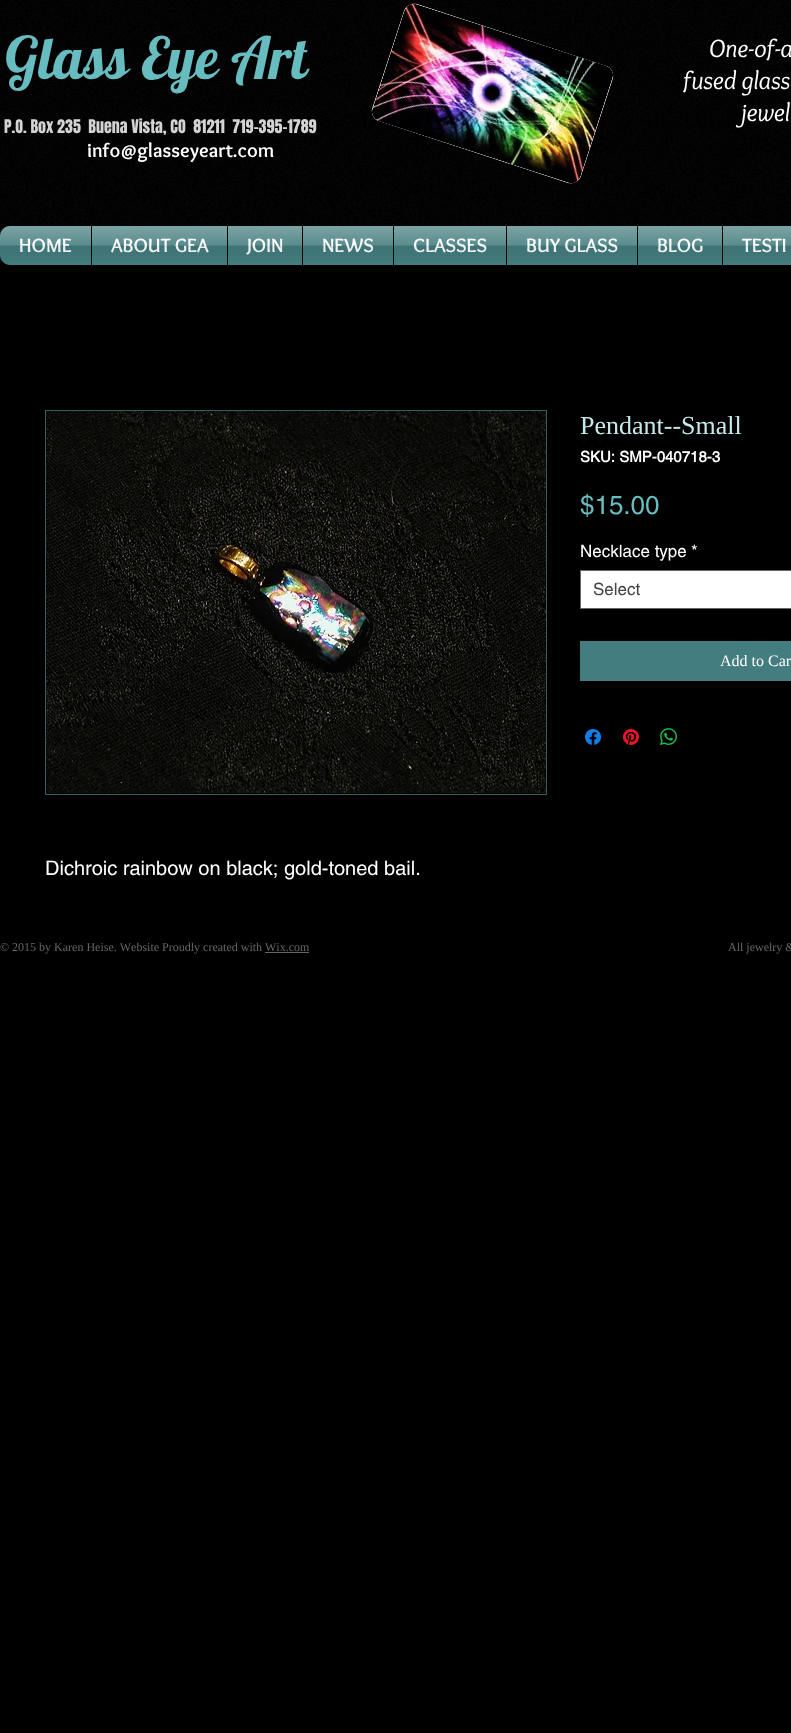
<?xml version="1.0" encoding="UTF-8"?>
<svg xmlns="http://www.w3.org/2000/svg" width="791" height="1733">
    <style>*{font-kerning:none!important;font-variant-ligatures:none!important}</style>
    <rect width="100%" height="100%" fill="#000000"/>
    <image x="0" y="0" width="791" height="265" href="img_01.png"/>
    <text x="5" y="79" font-family="Lobster" font-size="58" fill="#67BCBF">Glass Eye Art</text>
    <path d="M 417 4 L 606 66 C 611 67 614 73 613 78 L 581 176 C 579 182 573 184 568 183 L 379 121 C 374 120 371 114 372 109 L 404 11 C 406 5 412 3 417 4 Z" fill="#FFFFFF"/>
    <image x="372" y="4" width="241" height="179" href="img_02.png"/>
    <text x="709" y="57" font-family="Overlock" font-size="26" font-style="italic" fill="#FFFFFF">One-of-a</text>
    <text x="683" y="89" font-family="Overlock" font-size="26" font-style="italic" fill="#FFFFFF">fused glass</text>
    <text x="741" y="121" font-family="Overlock" font-size="26" font-style="italic" fill="#FFFFFF">jewel</text>
    <text x="4" y="133" font-family="Anton" font-size="16" fill="#D4D4D4" xml:space="preserve">P.O. Box 235  Buena Vista, CO  81211  719-395-1789</text>
    <text x="87" y="157" font-family="Overlock" font-size="20" font-weight="700" fill="#FFFFFF">info@glasseyeart.com</text>
    <image x="0" y="226" width="10" height="34" href="img_03.png"/>
    <path d="M 10 226 H 91 V 265 H 10 C 4.5 265 0 260.5 0 255 V 236 C 0 230.5 4.5 226 10 226 Z" fill="#447D7F"/>
    <text x="19" y="252" font-family="Overlock" font-size="20" font-weight="700" fill="#FFFFFF">HOME</text>
    <image x="0" y="226" width="91" height="36" href="img_04.png"/>
    <rect x="92" y="226" width="135" height="39" fill="#447D7F"/>
    <rect x="91" y="226" width="1" height="39" fill="#000000"/>
    <text x="111" y="252" font-family="Overlock" font-size="20" font-weight="700" fill="#FFFFFF">ABOUT GEA</text>
    <image x="92" y="226" width="135" height="36" href="img_05.png"/>
    <rect x="228" y="226" width="74" height="39" fill="#447D7F"/>
    <rect x="227" y="226" width="1" height="39" fill="#000000"/>
    <text x="247" y="252" font-family="Overlock" font-size="20" font-weight="700" fill="#FFFFFF">JOIN</text>
    <image x="228" y="226" width="74" height="36" href="img_06.png"/>
    <rect x="303" y="226" width="90" height="39" fill="#447D7F"/>
    <rect x="302" y="226" width="1" height="39" fill="#000000"/>
    <text x="322" y="252" font-family="Overlock" font-size="20" font-weight="700" fill="#FFFFFF">NEWS</text>
    <image x="303" y="226" width="90" height="36" href="img_07.png"/>
    <rect x="394" y="226" width="112" height="39" fill="#447D7F"/>
    <rect x="393" y="226" width="1" height="39" fill="#000000"/>
    <text x="413" y="252" font-family="Overlock" font-size="20" font-weight="700" fill="#FFFFFF">CLASSES</text>
    <image x="394" y="226" width="112" height="36" href="img_08.png"/>
    <rect x="507" y="226" width="130" height="39" fill="#447D7F"/>
    <rect x="506" y="226" width="1" height="39" fill="#000000"/>
    <text x="526" y="252" font-family="Overlock" font-size="20" font-weight="700" fill="#FFFFFF">BUY GLASS</text>
    <image x="507" y="226" width="130" height="36" href="img_09.png"/>
    <rect x="638" y="226" width="84" height="39" fill="#447D7F"/>
    <rect x="637" y="226" width="1" height="39" fill="#000000"/>
    <text x="657" y="252" font-family="Overlock" font-size="20" font-weight="700" fill="#FFFFFF">BLOG</text>
    <image x="638" y="226" width="84" height="36" href="img_10.png"/>
    <rect x="723" y="226" width="68" height="39" fill="#447D7F"/>
    <rect x="722" y="226" width="1" height="39" fill="#000000"/>
    <text x="742" y="252" font-family="Overlock" font-size="20" font-weight="700" fill="#FFFFFF">TESTI</text>
    <image x="723" y="226" width="68" height="36" href="img_11.png"/>
    <text x="580" y="434" font-family="Liberation Serif" font-size="26" fill="#C5E8E9">Pendant--Small</text>
    <text x="580" y="462" font-family="helvetica" font-size="15" font-weight="700" fill="#FFFFFF">SKU: SMP-040718-3</text>
    <text x="580" y="514" font-family="helvetica" font-size="26" fill="#67BCBF">$15.00</text>
    <text x="580" y="557" font-family="helvetica" font-size="17" fill="#FFFFFF">Necklace type</text>
    <text x="691" y="557" font-family="helvetica" font-size="17" fill="#FFFFFF">*</text>
    <rect x="580.5" y="570.5" width="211" height="38" fill="#FFFFFF" stroke="#666666"/>
    <text x="593" y="595" font-family="helvetica" font-size="17" fill="#444444">Select</text>
    <rect x="580" y="641" width="211" height="40" fill="#447D7F"/>
    <text x="720" y="666" font-family="Liberation Serif" font-size="16" fill="#FFFFFF">Add to Car</text>
    <image x="585" y="729" width="16" height="16" href="img_12.png"/>
    <image x="623" y="729" width="16" height="16" href="img_13.png"/>
    <image x="660" y="728" width="17" height="17" href="img_14.png"/>
    <rect x="45.5" y="410.5" width="501" height="384" fill="none" stroke="#345E60"/>
    <image x="46" y="411" width="500" height="382" href="img_15.png"/>
    <text x="45" y="875" font-family="helvetica" font-size="20" fill="#FFFFFF">Dichroic rainbow on black; gold-toned bail.</text>
    <text x="0" y="951" font-family="Liberation Serif" font-size="12" fill="#666666">© 2015 by Karen Heise. Website Proudly created with Wix.com</text>
    <rect x="265" y="952" width="44" height="1" fill="#666666"/>
    <text x="728" y="951" font-family="Liberation Serif" font-size="12" fill="#666666">All jewelry &amp;</text>
</svg>
